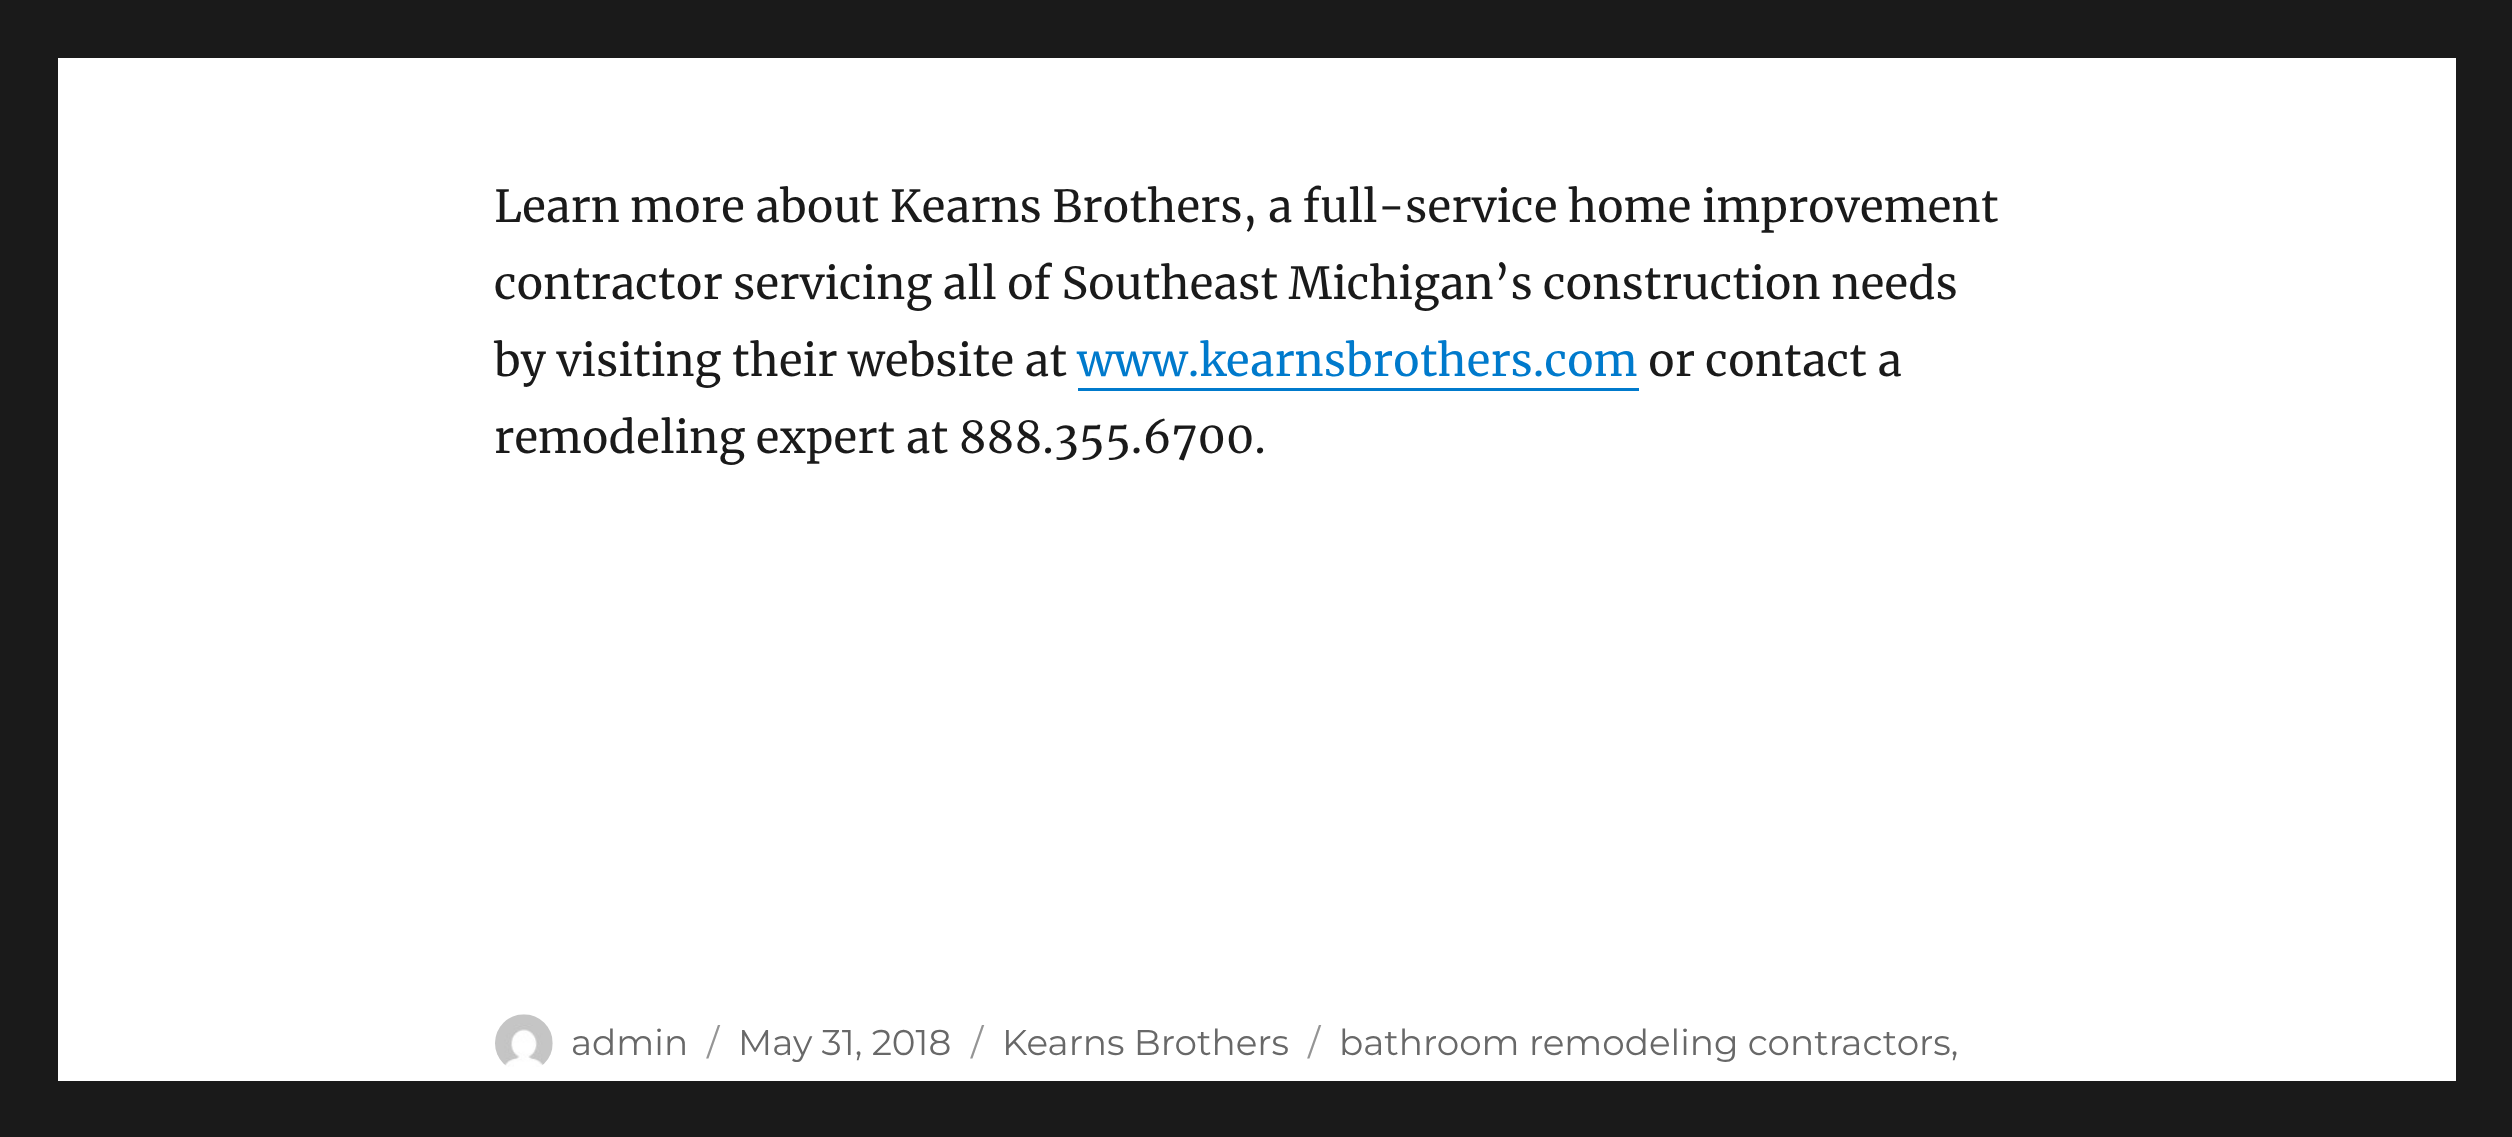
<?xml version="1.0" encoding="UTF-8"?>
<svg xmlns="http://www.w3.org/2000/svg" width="2512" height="1137">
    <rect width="100%" height="100%" fill="#1A1A1A"/>
    <rect x="58" y="58" width="2398" height="1023" fill="#FFFFFF"/>
    <text font-family="Merriweather" font-size="44" fill="#1A1A1A">
        <tspan x="494" y="222">Learn more about Kearns Brothers, a full-service home improvement</tspan>
        <tspan x="494" y="299">contractor servicing all of Southeast Michigan’s construction needs</tspan>
        <tspan x="494" y="376">by visiting their website at</tspan>
    </text>
    <text x="1077" y="376" font-family="Merriweather" font-size="44" fill="#007ACC">www.kearnsbrothers.com</text>
    <rect x="1078" y="388" width="561" height="3" fill="#007ACC"/>
    <text x="1648" y="376" font-family="Merriweather" font-size="44" fill="#1A1A1A">or contact a</text>
    <text x="494" y="453" font-family="Merriweather" font-size="44" fill="#1A1A1A">remodeling expert at 888.355.6700.</text>
    <image x="495" y="1014" width="58" height="53" href="img_01.png"/>
    <text x="571" y="1055" font-family="Montserrat" font-size="35.75" font-weight="100" fill="#686868">admin</text>
    <text x="707" y="1055" font-family="Montserrat" font-size="35.75" font-weight="100" fill="#959595">/</text>
    <text x="738" y="1055" font-family="Montserrat" font-size="35.75" font-weight="100" fill="#686868">May 31, 2018</text>
    <text x="971" y="1055" font-family="Montserrat" font-size="35.75" font-weight="100" fill="#959595">/</text>
    <text x="1002" y="1055" font-family="Montserrat" font-size="35.75" font-weight="100" fill="#686868">Kearns Brothers</text>
    <text x="1308" y="1055" font-family="Montserrat" font-size="35.75" font-weight="100" fill="#959595">/</text>
    <text x="1339" y="1055" font-family="Montserrat" font-size="35.75" font-weight="100" fill="#686868">bathroom remodeling contractors,</text>
</svg>
